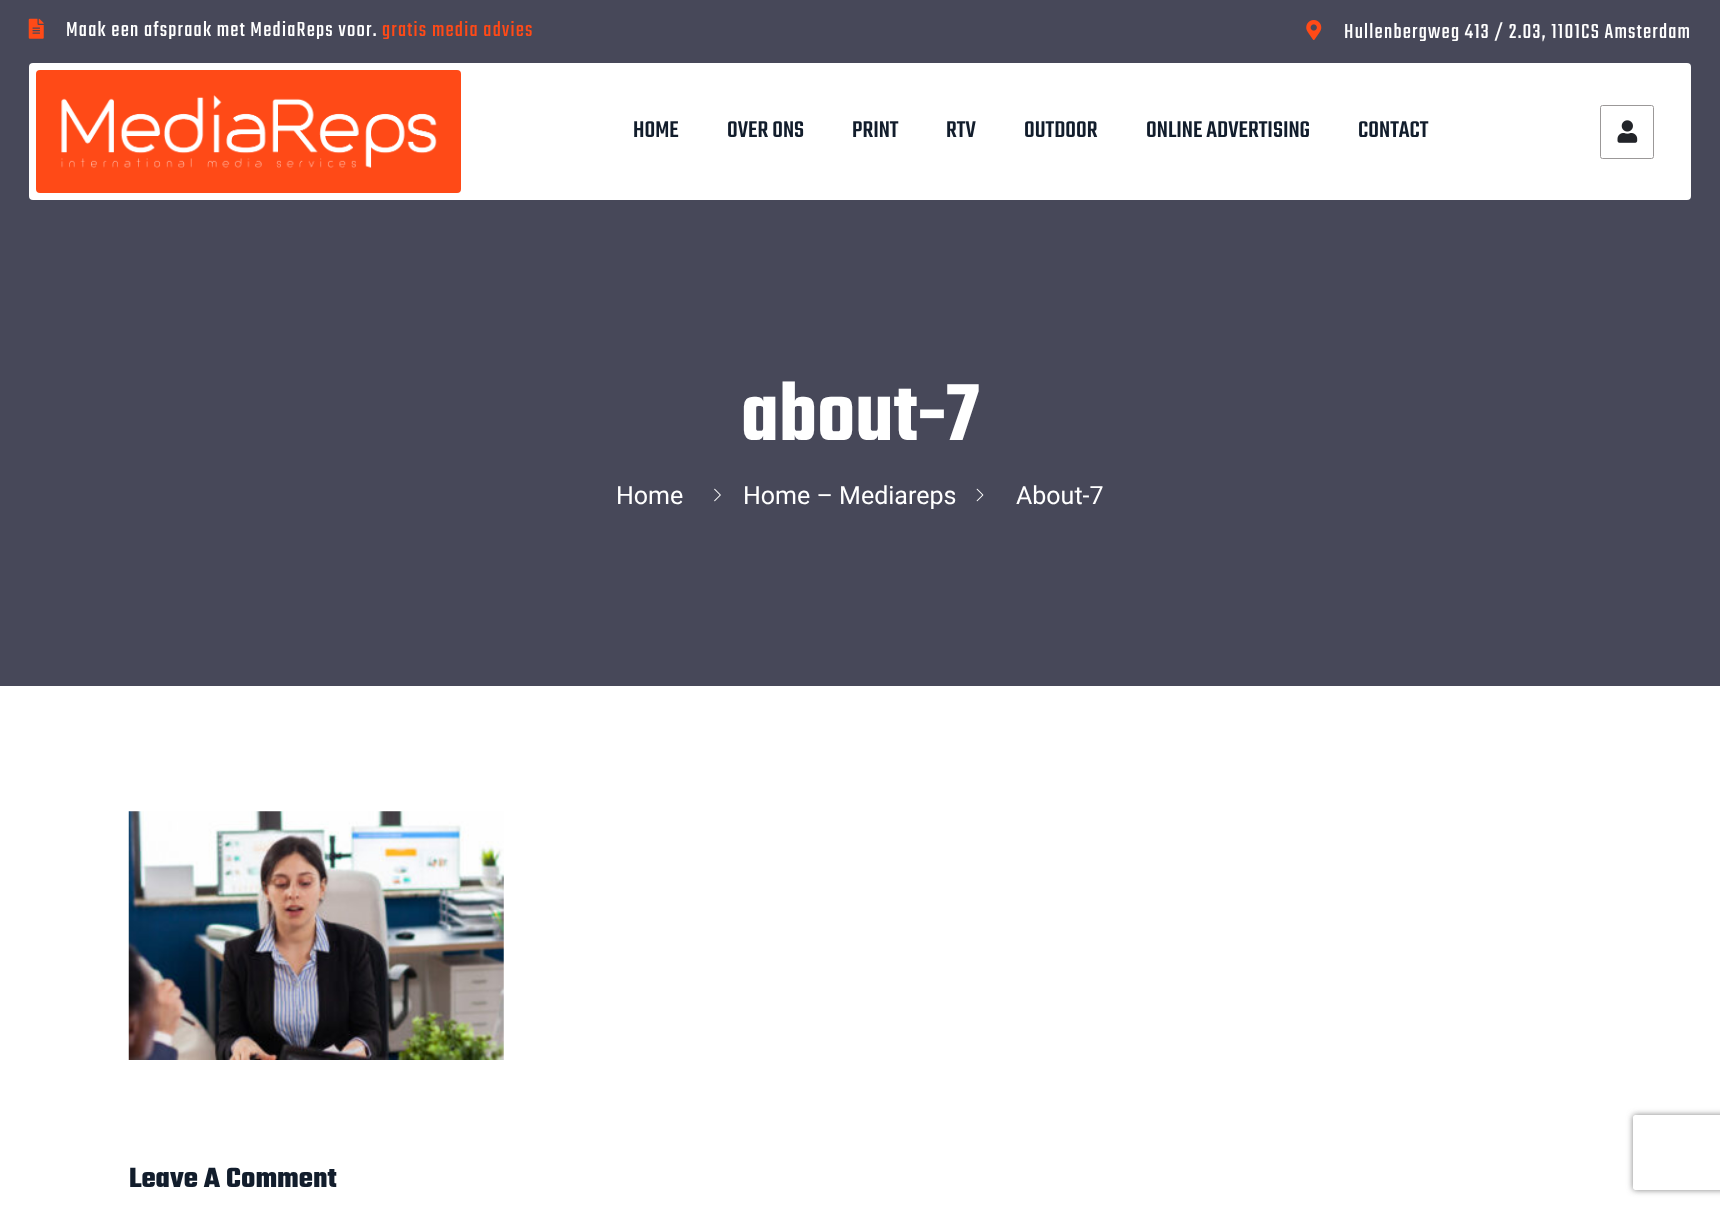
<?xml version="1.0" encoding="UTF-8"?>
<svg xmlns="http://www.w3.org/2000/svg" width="1720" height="1207">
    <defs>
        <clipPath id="clip1"><path d="M 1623 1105 H 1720 V 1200 H 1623 Z M 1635.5 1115 H 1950.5 C 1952 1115 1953 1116 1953 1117.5 V 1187.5 C 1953 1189 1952 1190 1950.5 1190 H 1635.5 C 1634 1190 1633 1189 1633 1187.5 V 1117.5 C 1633 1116 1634 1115 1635.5 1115 Z" clip-rule="evenodd"/></clipPath>
        <filter id="blur1" x="-50%" y="-200%" width="200%" height="500%"><feGaussianBlur stdDeviation="3"/></filter>
    </defs>
    <rect width="100%" height="100%" fill="#FFFFFF"/>
    <rect x="0" y="0" width="1720" height="686" fill="#474859"/>
    <image x="28" y="18" width="16" height="21" href="img_01.png"/>
    <text x="66" y="36" font-family="Teko" font-size="22.5" letter-spacing="1.25" fill="#FFFFFF">Maak een afspraak met MediaReps voor.</text>
    <text x="382" y="36" font-family="Teko" font-size="22.5" letter-spacing="1.25" fill="#FF4A17">gratis media advies</text>
    <image x="1306" y="20" width="16" height="20" href="img_02.png"/>
    <text x="1344" y="38" font-family="Teko" font-size="22.5" letter-spacing="1.25" fill="#FFFFFF">Hullenbergweg 413 / 2.03, 1101CS Amsterdam</text>
    <rect x="29" y="63" width="1662" height="137" rx="4" fill="#FFFFFF"/>
    <rect x="36" y="70" width="425" height="123" rx="4" fill="#FF4A17"/>
    <image x="61" y="95" width="376" height="73" href="img_03.png"/>
    <text x="633" y="137" font-family="Teko" font-size="25" font-weight="500" fill="#121D2C">HOME</text>
    <text x="727" y="137" font-family="Teko" font-size="25" font-weight="500" fill="#121D2C">OVER ONS</text>
    <text x="852" y="137" font-family="Teko" font-size="25" font-weight="500" fill="#121D2C">PRINT</text>
    <text x="946" y="137" font-family="Teko" font-size="25" font-weight="500" fill="#121D2C">RTV</text>
    <text x="1024" y="137" font-family="Teko" font-size="25" font-weight="500" fill="#121D2C">OUTDOOR</text>
    <text x="1146" y="137" font-family="Teko" font-size="25" font-weight="500" fill="#121D2C">ONLINE ADVERTISING</text>
    <text x="1358" y="137" font-family="Teko" font-size="25" font-weight="500" fill="#121D2C">CONTACT</text>
    <rect x="1600.5" y="105.5" width="53" height="53" rx="2" fill="none" stroke="#9B9898"/>
    <image x="1617" y="120" width="21" height="23" href="img_04.png"/>
    <text x="741" y="440" font-family="Teko" font-size="87.5" font-weight="600" fill="#FFFFFF">about-7</text>
    <text x="616" y="504" font-family="Roboto" font-size="25" fill="#FFFFFF">Home</text>
    <image x="714" y="488" width="7" height="14" href="img_05.png"/>
    <text x="743" y="504" font-family="Roboto" font-size="25" fill="#FFFFFF">Home – Mediareps</text>
    <image x="976" y="488" width="8" height="14" href="img_06.png"/>
    <text x="1016" y="504" font-family="Roboto" font-size="25" fill="#FFFFFF">About-7</text>
    <image x="128" y="811" width="376" height="249" href="img_07.png"/>
    <text x="129" y="1187" font-family="Teko" font-size="30" font-weight="700" fill="#121D2C">Leave A Comment</text>
    <g clip-path="url(#clip1)">
        <rect x="1633" y="1115" width="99" height="75" rx="2.5" fill="#808080" filter="url(#blur1)"/>
    </g>
</svg>
